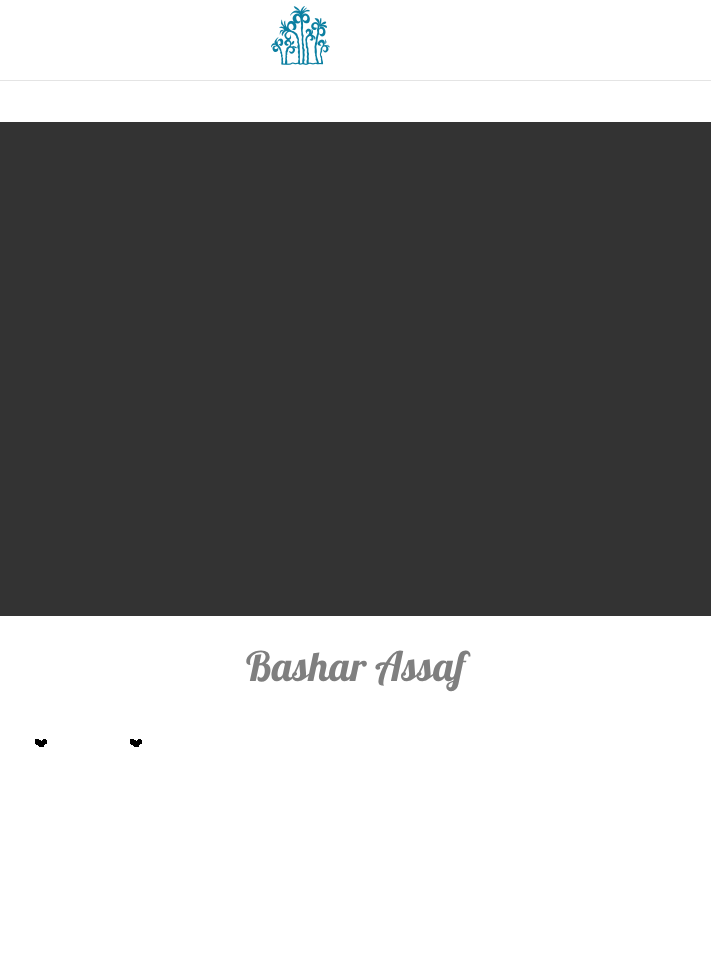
<?xml version="1.0" encoding="UTF-8"?>
<svg xmlns="http://www.w3.org/2000/svg" width="711" height="979">
    <rect width="100%" height="100%" fill="#FFFFFF"/>
    <rect x="0" y="80" width="711" height="1" fill="#E4E4E4"/>
    <image x="271" y="6" width="59" height="59" href="img_01.png"/>
    <rect x="0" y="122" width="711" height="494" fill="#333333"/>
    <text x="246" y="681" font-family="'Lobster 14'" font-size="40.75" fill="#7F7F7F">Bashar Assaf</text>
    <image x="35" y="739" width="12" height="8" href="img_02.png"/>
    <image x="130" y="739" width="12" height="8" href="img_02.png"/>
</svg>
